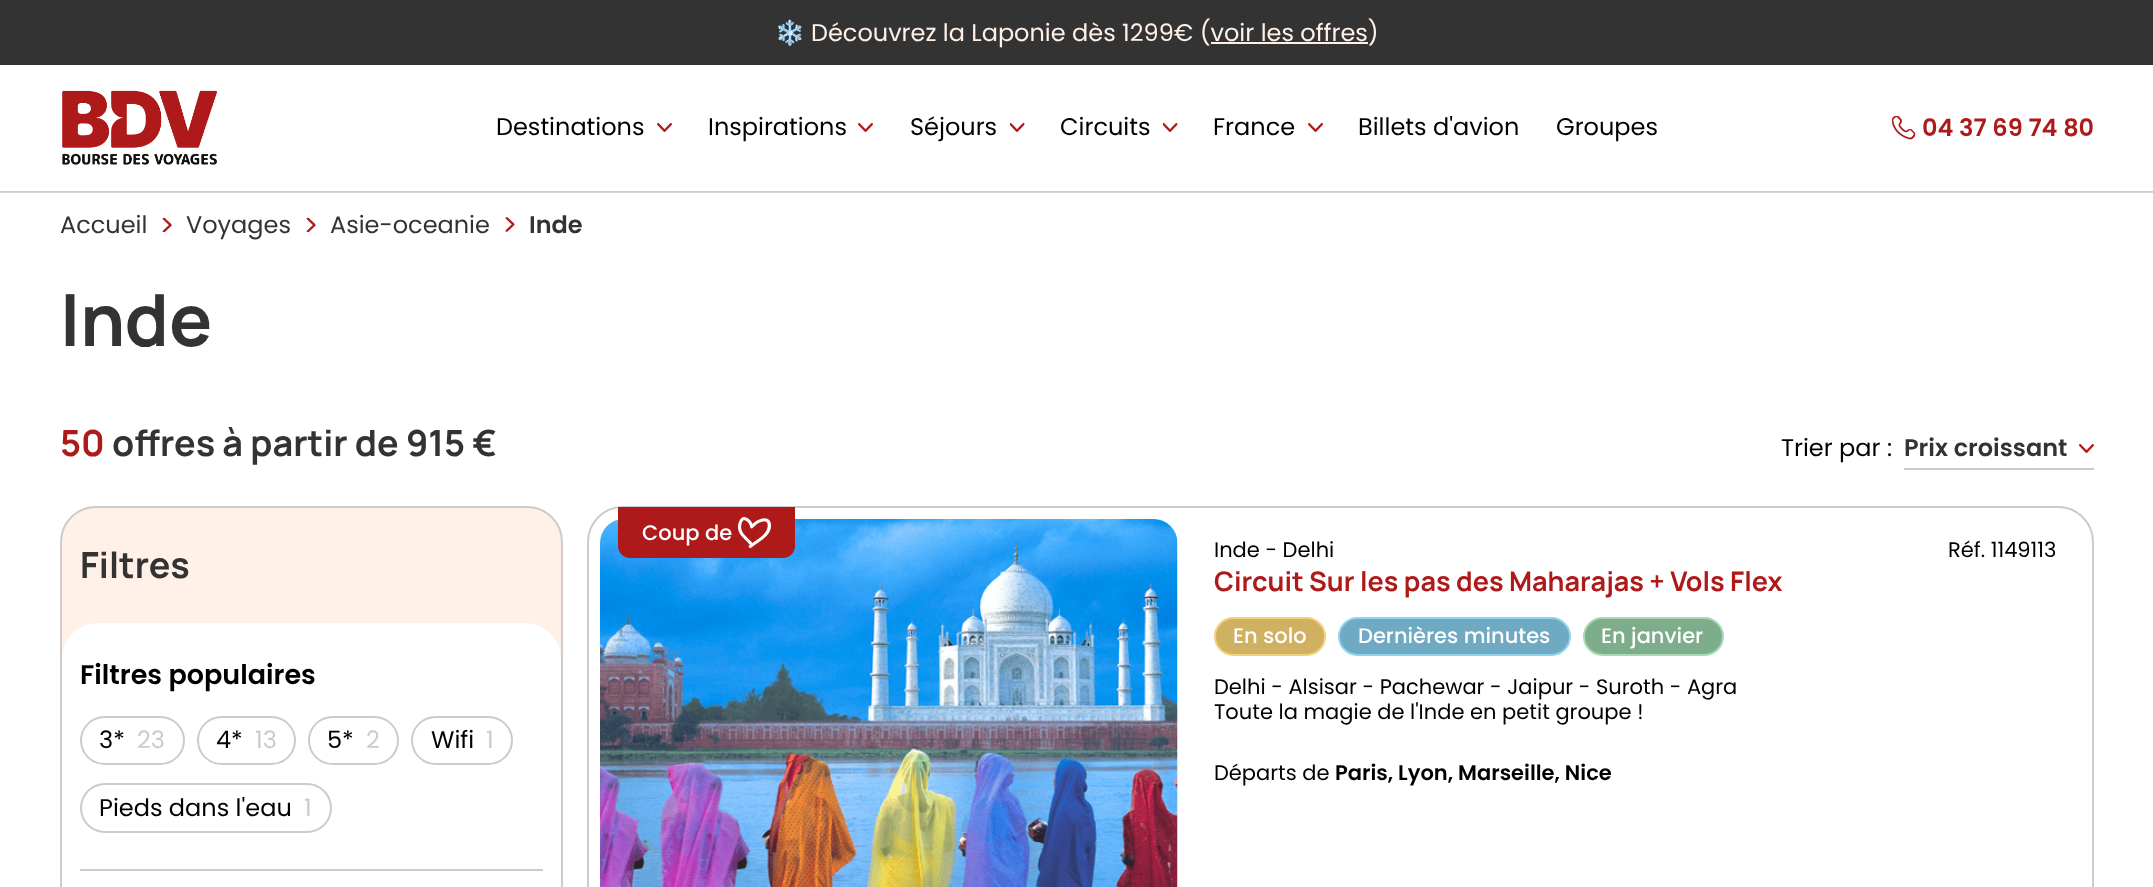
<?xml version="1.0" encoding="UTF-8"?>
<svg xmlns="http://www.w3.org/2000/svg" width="2153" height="887">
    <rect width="100%" height="100%" fill="#FFFFFF"/>
    <rect x="0" y="0" width="2153" height="65" fill="#333333"/>
    <text x="775" y="41" font-family="Noto Color Emoji" font-size="24" fill="#FFF1E8">❄️</text>
    <text x="811" y="41" font-family="Poppins" font-size="24" fill="#FFF1E8">Découvrez la Laponie dès 1299€ (voir les offres)</text>
    <rect x="1211" y="42" width="157" height="2" fill="#FFF1E8"/>
    <rect x="0" y="191" width="2153" height="1" fill="#CCCCCC"/>
    <rect x="0" y="192" width="2153" height="1" fill="#D6D6D6"/>
    <image x="62" y="90" width="156" height="75" href="img_01.png"/>
    <text x="496" y="135" font-family="Poppins" font-size="24" fill="#000000">Destinations</text>
    <image x="657" y="123" width="15" height="9" href="img_02.png"/>
    <text x="708" y="135" font-family="Poppins" font-size="24" fill="#000000">Inspirations</text>
    <image x="858" y="123" width="15" height="9" href="img_02.png"/>
    <text x="910" y="135" font-family="Poppins" font-size="24" fill="#000000">Séjours</text>
    <image x="1010" y="123" width="15" height="9" href="img_03.png"/>
    <text x="1060" y="135" font-family="Poppins" font-size="24" fill="#000000">Circuits</text>
    <image x="1163" y="123" width="15" height="9" href="img_03.png"/>
    <text x="1213" y="135" font-family="Poppins" font-size="24" fill="#000000">France</text>
    <image x="1308" y="123" width="15" height="9" href="img_02.png"/>
    <text x="1358" y="135" font-family="Poppins" font-size="24" fill="#000000">Billets d'avion</text>
    <text x="1556" y="135" font-family="Poppins" font-size="24" fill="#000000">Groupes</text>
    <image x="1892" y="116" width="24" height="24" href="img_04.png"/>
    <text x="1922" y="136" font-family="Poppins" font-size="24" font-weight="600" fill="#AE1919">04 37 69 74 80</text>
    <text x="60" y="233" font-family="Poppins" font-size="24" fill="#333333">Accueil</text>
    <image x="162" y="217" width="10" height="16" href="img_05.png"/>
    <text x="186" y="233" font-family="Poppins" font-size="24" fill="#333333">Voyages</text>
    <image x="306" y="217" width="10" height="16" href="img_06.png"/>
    <text x="330" y="233" font-family="Poppins" font-size="24" fill="#333333">Asie-oceanie</text>
    <image x="505" y="217" width="10" height="15" href="img_07.png"/>
    <text x="529" y="233" font-family="Poppins" font-size="24" font-weight="600" fill="#333333">Inde</text>
    <text x="60" y="346" font-family="Manrope" font-size="72" font-weight="700" fill="#333333">Inde</text>
    <text x="60" y="456" font-family="Manrope" font-size="36" font-weight="700" fill="#AE1919">50</text>
    <text x="112" y="456" font-family="Manrope" font-size="36" font-weight="700" fill="#333333">offres à partir de 915 €</text>
    <text x="1781" y="456" font-family="Poppins" font-size="24" fill="#000000">Trier par :</text>
    <rect x="1904" y="468" width="190" height="2" fill="#CCCCCC"/>
    <text x="1904" y="456" font-family="Poppins" font-size="24" font-weight="600" fill="#333333">Prix croissant</text>
    <image x="2079" y="444" width="15" height="9" href="img_02.png"/>
    <rect x="61" y="507" width="501" height="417" rx="35" fill="#FFF1E8" stroke="#CCCCCC" stroke-width="2"/>
    <text x="80" y="578" font-family="Manrope" font-size="36" font-weight="700" fill="#333333">Filtres</text>
    <rect x="62" y="623" width="499" height="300" rx="36" fill="#FFFFFF"/>
    <rect x="80" y="869" width="463" height="2" fill="#CCCCCC"/>
    <text x="80" y="684" font-family="Poppins" font-size="27" font-weight="600" fill="#000000">Filtres populaires</text>
    <rect x="81" y="717" width="103" height="47" rx="23.5" fill="none" stroke="#CCCCCC" stroke-width="2"/>
    <text x="99" y="748" font-family="Poppins" font-size="24" fill="#000000">3*</text>
    <text x="137" y="748" font-family="Poppins" font-size="24" fill="#CCCCCC">23</text>
    <rect x="198" y="717" width="97" height="47" rx="23.5" fill="none" stroke="#CCCCCC" stroke-width="2"/>
    <text x="216" y="748" font-family="Poppins" font-size="24" fill="#000000">4*</text>
    <text x="255" y="748" font-family="Poppins" font-size="24" fill="#CCCCCC">13</text>
    <rect x="309" y="717" width="89" height="47" rx="23.5" fill="none" stroke="#CCCCCC" stroke-width="2"/>
    <text x="327" y="748" font-family="Poppins" font-size="24" fill="#000000">5*</text>
    <text x="366" y="748" font-family="Poppins" font-size="24" fill="#CCCCCC">2</text>
    <rect x="412" y="717" width="100" height="47" rx="23.5" fill="none" stroke="#CCCCCC" stroke-width="2"/>
    <text x="431" y="748" font-family="Poppins" font-size="24" fill="#000000">Wifi</text>
    <text x="486" y="748" font-family="Poppins" font-size="24" fill="#CCCCCC">1</text>
    <rect x="81" y="784" width="250" height="48" rx="24" fill="none" stroke="#CCCCCC" stroke-width="2"/>
    <text x="99" y="816" font-family="Poppins" font-size="24" fill="#000000">Pieds dans l'eau</text>
    <text x="304" y="816" font-family="Poppins" font-size="24" fill="#CCCCCC">1</text>
    <rect x="588" y="507" width="1505" height="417" rx="35" fill="none" stroke="#CCCCCC" stroke-width="2"/>
    <image x="600" y="519" width="578" height="368" href="img_09.png"/>
    <path d="M 618 507 H 795 V 546 C 795 552.5 789.5 558 783 558 H 630 C 623.5 558 618 552.5 618 546 Z" fill="#AE1919"/>
    <text x="642" y="540" font-family="Poppins" font-size="21" font-weight="500" fill="#FFFFFF">Coup de</text>
    <image x="738" y="517" width="33" height="31" href="img_08.png"/>
    <text x="1214" y="557" font-family="Poppins" font-size="21" fill="#000000">Inde - Delhi</text>
    <text x="1948" y="557" font-family="Poppins" font-size="21" fill="#000000">Réf. 1149113</text>
    <text x="1214" y="591" font-family="Manrope" font-size="27" font-weight="700" fill="#AE1919">Circuit Sur les pas des Maharajas + Vols Flex</text>
    <rect x="1215" y="618" width="110" height="37" rx="18.5" fill="#D0B161" stroke="#F2D17B" stroke-width="2"/>
    <text x="1233" y="643" font-family="Poppins" font-size="21" font-weight="500" fill="#FFFFFF">En solo</text>
    <rect x="1339" y="618" width="231" height="37" rx="18.5" fill="#6FAAC2" stroke="#91D4EF" stroke-width="2"/>
    <text x="1358" y="643" font-family="Poppins" font-size="21" font-weight="500" fill="#FFFFFF">Dernières minutes</text>
    <rect x="1584" y="618" width="139" height="37" rx="18.5" fill="#7DAD8A" stroke="#A9D8B6" stroke-width="2"/>
    <text x="1601" y="643" font-family="Poppins" font-size="21" font-weight="500" fill="#FFFFFF">En janvier</text>
    <text font-family="Poppins" font-size="21" fill="#000000">
        <tspan x="1214" y="694">Delhi - Alsisar - Pachewar - Jaipur - Suroth - Agra</tspan>
        <tspan x="1214" y="719">Toute la magie de l'Inde en petit groupe !</tspan>
    </text>
    <text x="1214" y="780" font-family="Poppins" font-size="21" fill="#000000">Départs de</text>
    <text x="1335" y="780" font-family="Poppins" font-size="21" font-weight="600" fill="#000000">Paris, Lyon, Marseille, Nice</text>
</svg>
